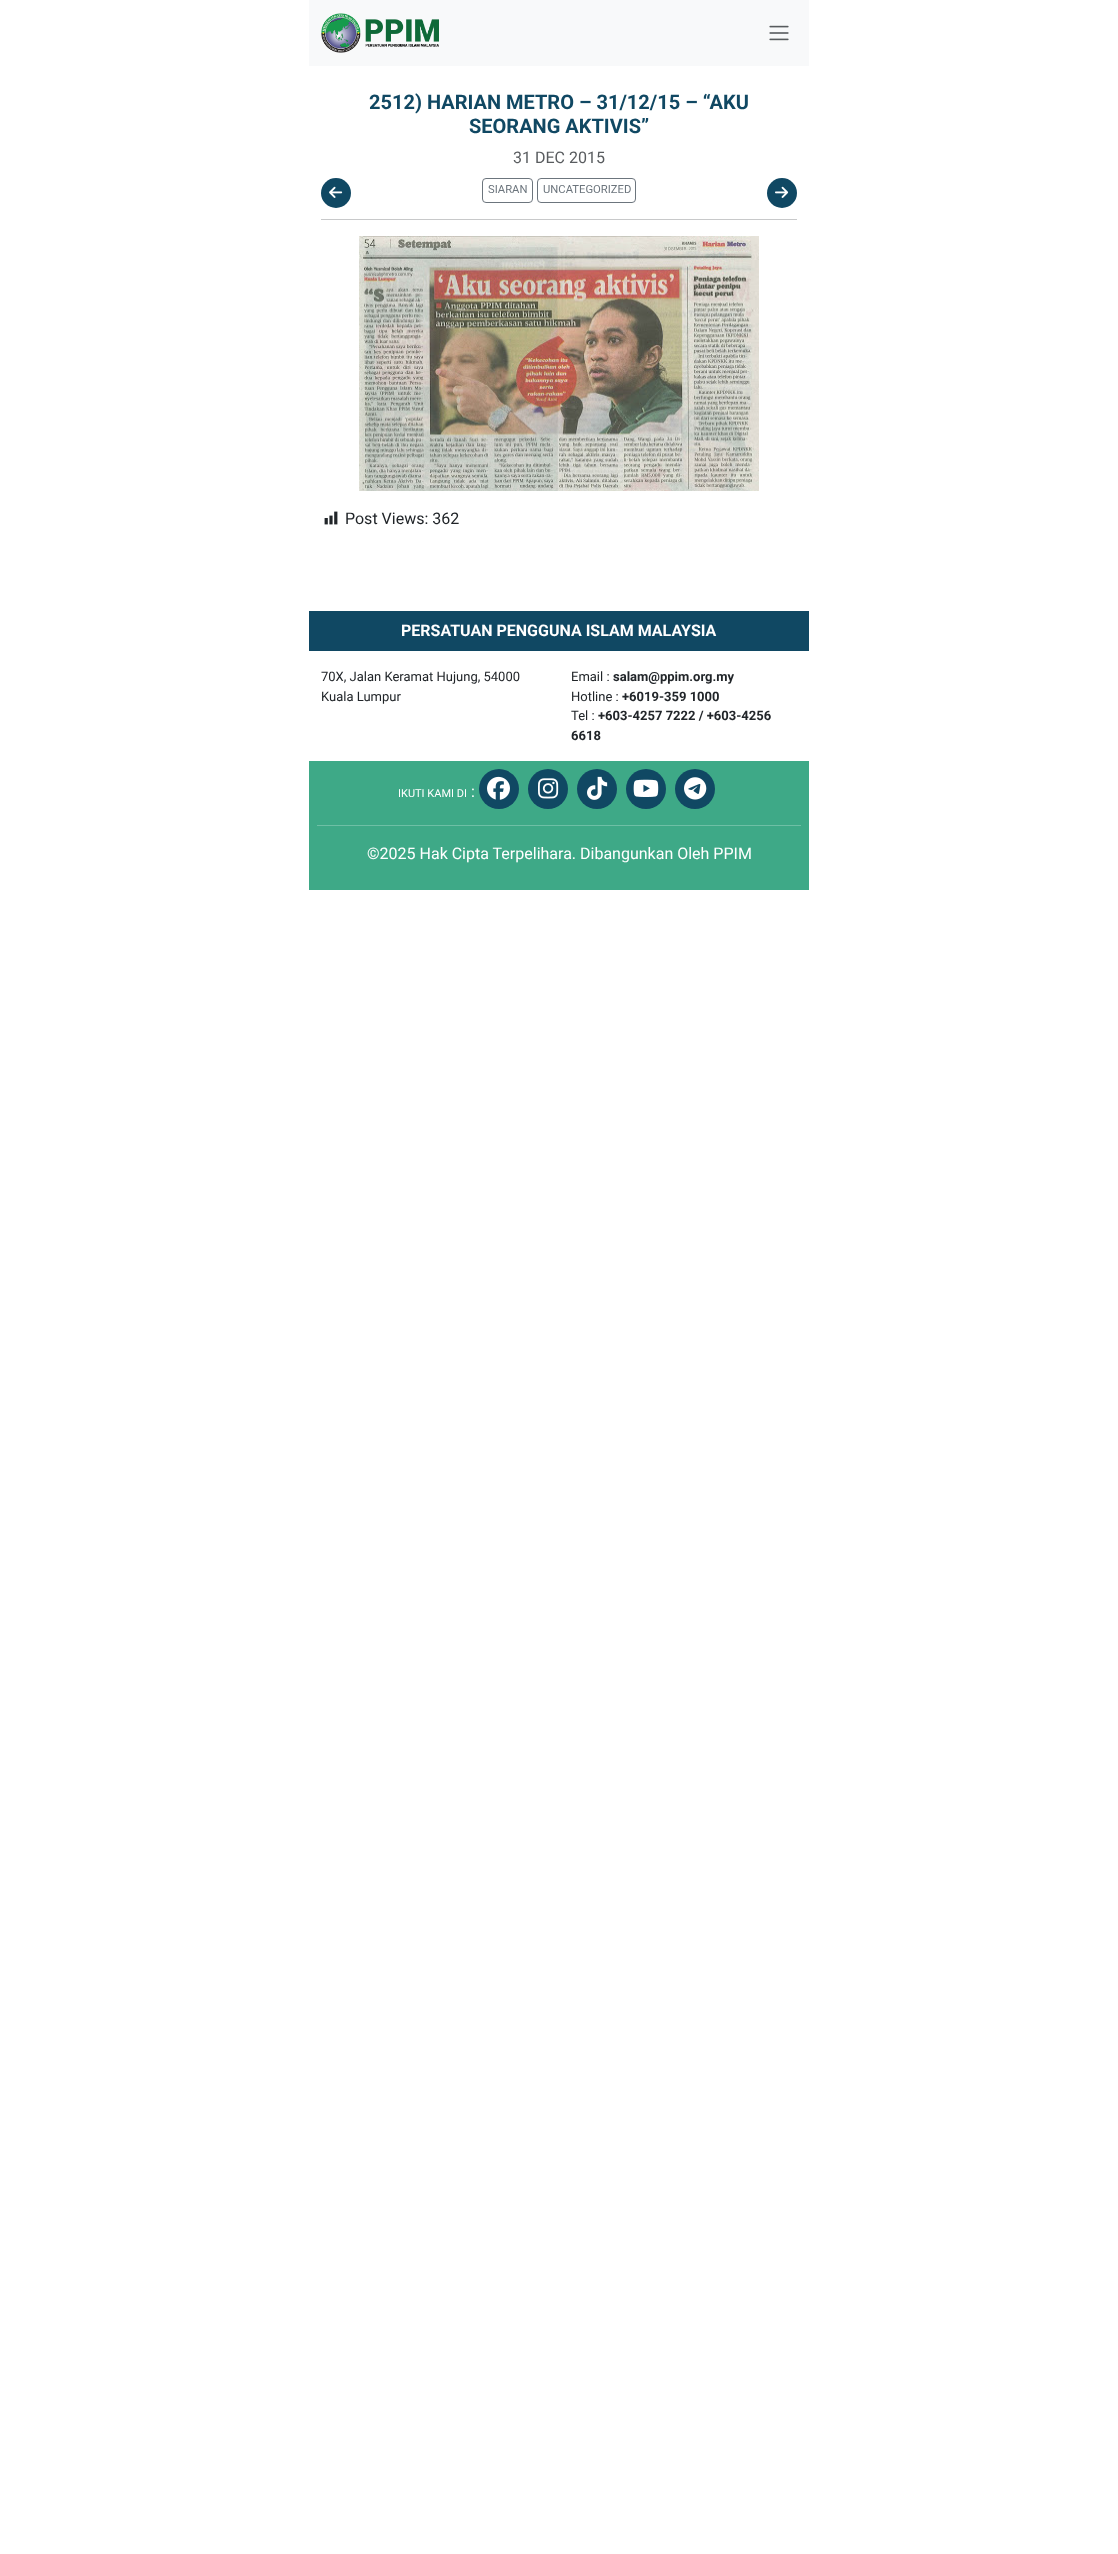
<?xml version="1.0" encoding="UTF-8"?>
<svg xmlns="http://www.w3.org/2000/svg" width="1118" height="2554">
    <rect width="100%" height="100%" fill="#FFFFFF"/>
    <rect x="309" y="0" width="500" height="66" fill="#F8F9FA"/>
    <image x="321" y="13" width="118" height="40" href="img_01.png"/>
    <image x="769" y="25" width="20" height="16" href="img_02.png"/>
    <text x="369" y="109" font-family="Roboto" font-size="20" font-weight="700" fill="#104863">2512) HARIAN METRO – 31/12/15 – “AKU</text>
    <text x="469" y="133" font-family="Roboto" font-size="20" font-weight="700" fill="#104863">SEORANG AKTIVIS”</text>
    <text x="513" y="163" font-family="Roboto" font-size="16" fill="#595C5F">31 DEC 2015</text>
    <circle cx="336" cy="193" r="15" fill="#104863"/>
    <image x="329" y="186" width="14" height="12" href="img_03.png"/>
    <circle cx="782" cy="193" r="15" fill="#104863"/>
    <image x="775" y="186" width="14" height="12" href="img_04.png"/>
    <rect x="482.5" y="178.5" width="50" height="24" rx="3.5" fill="none" stroke="#6C757D"/>
    <text x="488" y="193" font-family="Roboto" font-size="11.25" fill="#6C757D">SIARAN</text>
    <rect x="537.5" y="178.5" width="98" height="24" rx="3.5" fill="none" stroke="#6C757D"/>
    <text x="543" y="193" font-family="Roboto" font-size="11.25" fill="#6C757D">UNCATEGORIZED</text>
    <rect x="321" y="219" width="476" height="1" fill="#C8C9CA"/>
    <image x="359" y="236" width="400" height="255" href="img_05.png"/>
    <image x="324" y="511" width="14" height="14" href="img_06.png"/>
    <text x="345" y="524" font-family="Roboto" font-size="16" fill="#212529">Post Views: 362</text>
    <rect x="309" y="611" width="500" height="40" fill="#104863"/>
    <text x="401" y="636" font-family="Roboto" font-size="16" font-weight="700" fill="#FFFFFF">PERSATUAN PENGGUNA ISLAM MALAYSIA</text>
    <text font-family="Roboto" font-size="13" fill="#212529">
        <tspan x="321" y="681">70X, Jalan Keramat Hujung, 54000</tspan>
        <tspan x="321" y="701">Kuala Lumpur</tspan>
    </text>
    <text x="571" y="681" font-family="Roboto" font-size="13" fill="#212529">Email :</text>
    <text x="613" y="681" font-family="Roboto" font-size="13" font-weight="700" fill="#212529">salam@ppim.org.my</text>
    <text x="571" y="701" font-family="Roboto" font-size="13" fill="#212529">Hotline :</text>
    <text x="622" y="701" font-family="Roboto" font-size="13" font-weight="700" fill="#212529">+6019-359 1000</text>
    <text x="571" y="720" font-family="Roboto" font-size="13" fill="#212529">Tel :</text>
    <text x="598" y="720" font-family="Roboto" font-size="13" font-weight="700" fill="#212529">+603-4257 7222 / +603-4256</text>
    <text x="571" y="740" font-family="Roboto" font-size="13" font-weight="700" fill="#212529">6618</text>
    <rect x="309" y="761" width="500" height="129" fill="#3EA987"/>
    <text x="398" y="797" font-family="Roboto" font-size="11" fill="#FFFFFF">IKUTI KAMI DI</text>
    <text x="471" y="797" font-family="Roboto" font-size="16" fill="#FFFFFF">:</text>
    <circle cx="499" cy="789" r="20" fill="#104863"/>
    <image x="487" y="776" width="23" height="24" href="img_07.png"/>
    <circle cx="548" cy="789" r="20" fill="#104863"/>
    <image x="538" y="778" width="21" height="21" href="img_08.png"/>
    <circle cx="597" cy="789" r="20" fill="#104863"/>
    <image x="587" y="776" width="21" height="24" href="img_09.png"/>
    <circle cx="646" cy="789" r="20" fill="#104863"/>
    <image x="633" y="779" width="26" height="18" href="img_10.png"/>
    <circle cx="695" cy="789" r="20" fill="#104863"/>
    <image x="684" y="777" width="23" height="23" href="img_11.png"/>
    <rect x="317" y="825" width="484" height="1" fill="#6EBFA5"/>
    <text x="367" y="859" font-family="Roboto" font-size="16" fill="#FFFFFF">©2025 Hak Cipta Terpelihara. Dibangunkan Oleh PPIM</text>
</svg>
